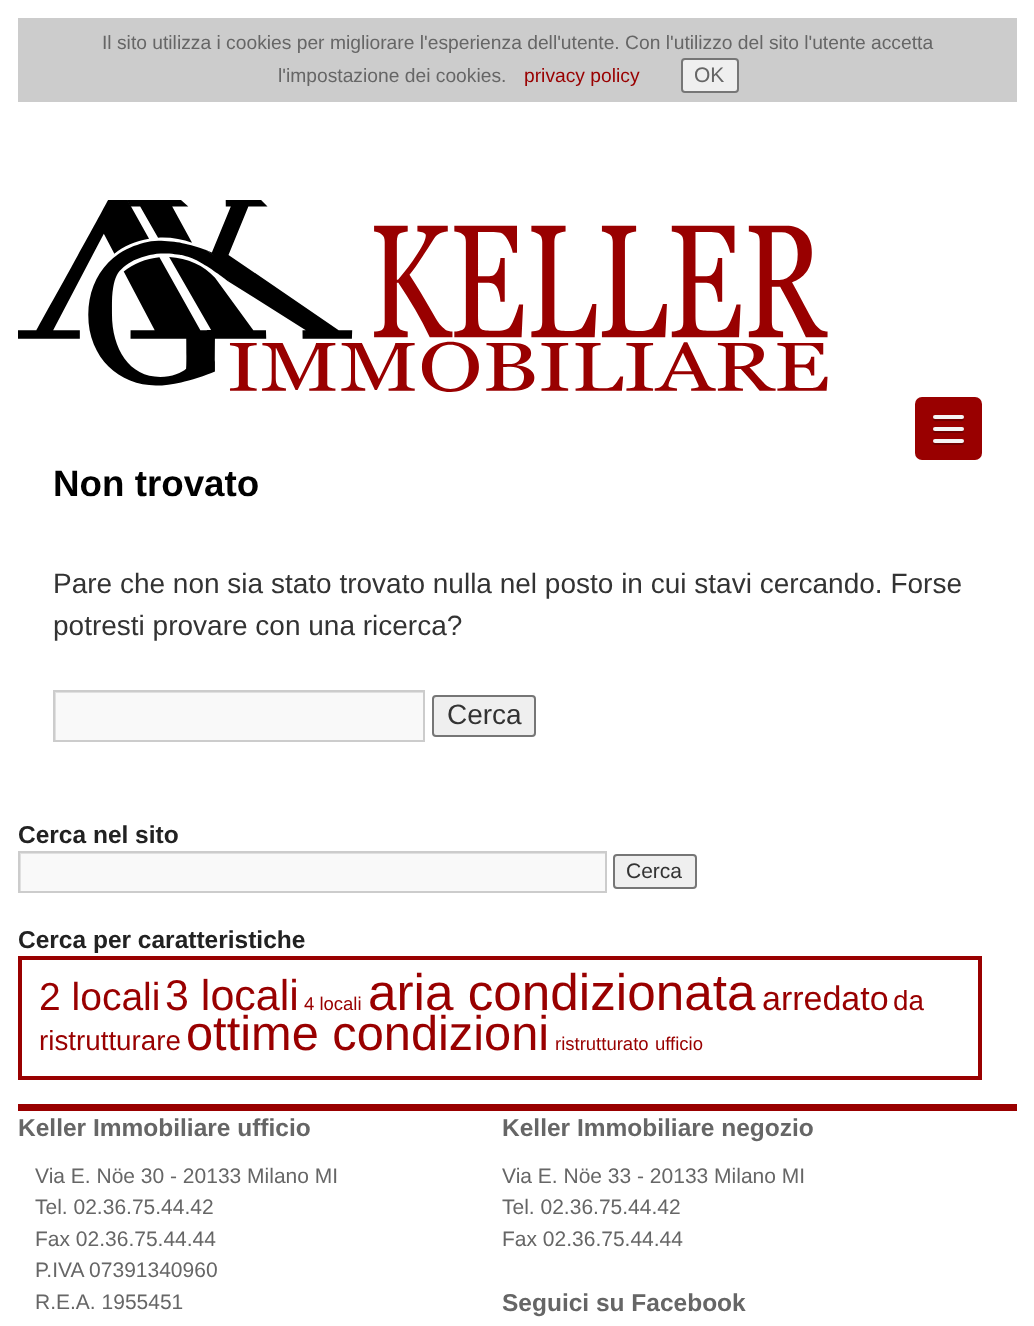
<?xml version="1.0" encoding="UTF-8"?>
<svg xmlns="http://www.w3.org/2000/svg" width="1034" height="1326">
    <defs>
        <clipPath id="clip1"><rect x="54" y="691" width="370" height="49"/></clipPath>
        <clipPath id="clip2"><rect x="19" y="852" width="587" height="39"/></clipPath>
    </defs>
    <rect width="100%" height="100%" fill="#FFFFFF"/>
    <rect x="18" y="18" width="999" height="84" fill="#CCCCCC"/>
    <text x="102" y="49" font-family="Liberation Sans" font-size="19.25" fill="#666666">Il sito utilizza i cookies per migliorare l'esperienza dell'utente. Con l'utilizzo del sito l'utente accetta</text>
    <text x="278" y="82" font-family="Liberation Sans" font-size="19.25" fill="#666666">l'impostazione dei cookies.</text>
    <text x="524" y="82" font-family="Liberation Sans" font-size="19.25" fill="#990000">privacy policy</text>
    <rect x="682" y="59" width="56" height="33" rx="3" fill="#EFEFEF" stroke="#767676" stroke-width="2"/>
    <text x="694" y="82" font-family="Liberation Sans" font-size="21" fill="#666666">OK</text>
    <image x="18" y="200" width="810" height="192" href="img_01.png"/>
    <rect x="915" y="397" width="67" height="63" rx="7" fill="#990000"/>
    <path d="M 933.5 418 L 933 419.5 C 933.5 422 938.5 421 939.5 421 H 957.5 C 958.5 421 963.5 422 964 419.5 L 963.5 418 C 962.5 418.5 934.5 418.5 933.5 418 Z" fill="#730000"/>
    <rect x="933" y="415" width="31" height="4" rx="2" fill="#F5F5F5"/>
    <path d="M 933.5 430 C 931 434 939 433 939.5 433 H 957.5 C 958 433 966 434 963.5 430 L 962.5 430.5 H 934.5 Z" fill="#730000"/>
    <rect x="933" y="427" width="31" height="4" rx="2" fill="#F5F5F5"/>
    <path d="M 933 442 C 931.5 446 938.5 445 939.5 445 H 957.5 C 958.5 445 965.5 446 964 442 L 962.5 442.5 H 934.5 Z" fill="#730000"/>
    <rect x="933" y="439" width="31" height="4" rx="2" fill="#F5F5F5"/>
    <text x="53" y="496" font-family="Liberation Sans" font-size="36.75" font-weight="700" fill="#000000">Non trovato</text>
    <text font-family="Liberation Sans" font-size="28" fill="#333333">
        <tspan x="53" y="593">Pare che non sia stato trovato nulla nel posto in cui stavi cercando. Forse</tspan>
        <tspan x="53" y="635">potresti provare con una ricerca?</tspan>
    </text>
    <rect x="56" y="693" width="367" height="47" fill="#F9F9F9"/>
    <g clip-path="url(#clip1)">
        <path d="M -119 518 H 597 V 914 H -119 Z M 56 693 H 425 V 742 H 56 Z" fill="#E0E0E0" fill-rule="evenodd"/>
    </g>
    <rect x="54" y="691" width="370" height="50" fill="none" stroke="#CCCCCC" stroke-width="2"/>
    <rect x="433" y="696" width="102" height="40" rx="3" fill="#EFEFEF" stroke="#767676" stroke-width="2"/>
    <text x="447" y="724" font-family="Liberation Sans" font-size="28" fill="#333333">Cerca</text>
    <text x="18" y="843" font-family="Liberation Sans" font-size="24.5" font-weight="700" fill="#222222">Cerca nel sito</text>
    <rect x="21" y="854" width="584" height="37" fill="#F9F9F9"/>
    <g clip-path="url(#clip2)">
        <path d="M -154 679 H 779 V 1064 H -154 Z M 21 854 H 607 V 892 H 21 Z" fill="#E0E0E0" fill-rule="evenodd"/>
    </g>
    <rect x="19" y="852" width="587" height="40" fill="none" stroke="#CCCCCC" stroke-width="2"/>
    <rect x="614" y="855" width="82" height="33" rx="3" fill="#EFEFEF" stroke="#767676" stroke-width="2"/>
    <text x="626" y="878" font-family="Liberation Sans" font-size="21" fill="#333333">Cerca</text>
    <text x="18" y="948" font-family="Liberation Sans" font-size="24.5" font-weight="700" fill="#222222">Cerca per caratteristiche</text>
    <rect x="20" y="958" width="960" height="120" fill="none" stroke="#990000" stroke-width="4"/>
    <text x="39" y="1010" font-family="Liberation Sans" font-size="39" fill="#990000">2 locali</text>
    <text x="165" y="1010" font-family="Liberation Sans" font-size="43" fill="#990000">3 locali</text>
    <text x="304" y="1010" font-family="Liberation Sans" font-size="18.5" fill="#990000">4 locali</text>
    <text x="368" y="1010" font-family="Liberation Sans" font-size="51.25" fill="#990000">aria condizionata</text>
    <text x="762" y="1010" font-family="Liberation Sans" font-size="34" fill="#990000">arredato</text>
    <text x="893" y="1010" font-family="Liberation Sans" font-size="27.75" fill="#990000">da</text>
    <text x="39" y="1050" font-family="Liberation Sans" font-size="27.75" fill="#990000">ristrutturare</text>
    <text x="186" y="1050" font-family="Liberation Sans" font-size="48.75" fill="#990000">ottime condizioni</text>
    <text x="555" y="1050" font-family="Liberation Sans" font-size="18.5" fill="#990000">ristrutturato</text>
    <text x="655" y="1050" font-family="Liberation Sans" font-size="18.5" fill="#990000">ufficio</text>
    <rect x="18" y="1104" width="999" height="7" fill="#990000"/>
    <text x="18" y="1136" font-family="Liberation Sans" font-size="24.5" font-weight="700" fill="#666666">Keller Immobiliare ufficio</text>
    <text font-family="Liberation Sans" font-size="21" fill="#666666">
        <tspan x="35" y="1183">Via E. Nöe 30 - 20133 Milano MI</tspan>
        <tspan x="35" y="1214">Tel. 02.36.75.44.42</tspan>
        <tspan x="35" y="1246">Fax 02.36.75.44.44</tspan>
        <tspan x="35" y="1277">P.IVA 07391340960</tspan>
        <tspan x="35" y="1309">R.E.A. 1955451</tspan>
    </text>
    <text x="502" y="1136" font-family="Liberation Sans" font-size="24.5" font-weight="700" fill="#666666">Keller Immobiliare negozio</text>
    <text font-family="Liberation Sans" font-size="21" fill="#666666">
        <tspan x="502" y="1183">Via E. Nöe 33 - 20133 Milano MI</tspan>
        <tspan x="502" y="1214">Tel. 02.36.75.44.42</tspan>
        <tspan x="502" y="1246">Fax 02.36.75.44.44</tspan>
    </text>
    <text x="502" y="1311" font-family="Liberation Sans" font-size="24.5" font-weight="700" fill="#666666">Seguici su Facebook</text>
</svg>
